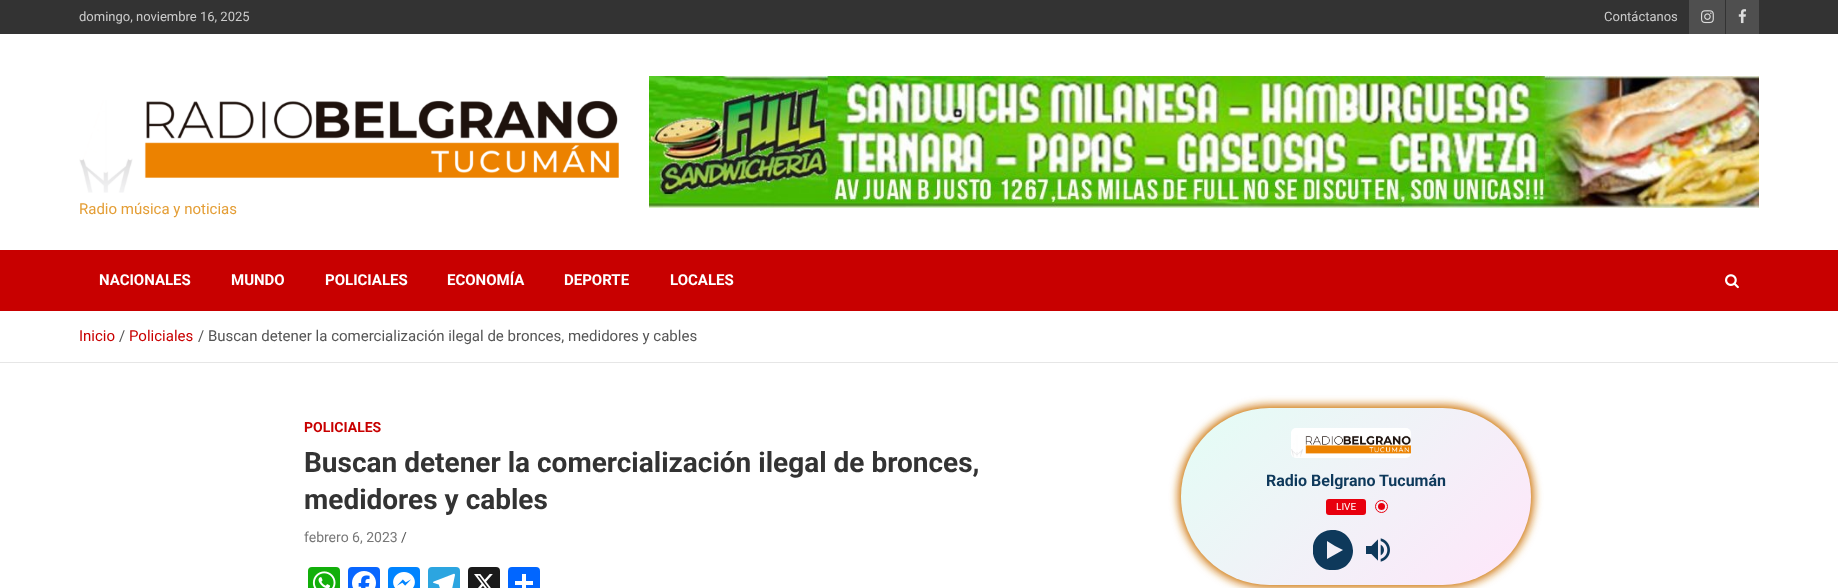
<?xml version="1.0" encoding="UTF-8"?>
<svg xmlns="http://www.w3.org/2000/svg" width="1838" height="588">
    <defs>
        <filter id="blur1" x="-50%" y="-200%" width="200%" height="500%"><feGaussianBlur stdDeviation="4.5"/></filter>
        <linearGradient id="g1" gradientUnits="userSpaceOnUse" x1="1224" y1="365" x2="1488" y2="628"><stop offset="0" stop-color="#E3FDF5"/><stop offset="1" stop-color="#FFE6FA"/></linearGradient>
        <clipPath id="clip1"><rect x="1266" y="473" width="180" height="16"/></clipPath>
        <clipPath id="clip2"><rect x="1313" y="529" width="41" height="41"/></clipPath>
    </defs>
    <rect width="100%" height="100%" fill="#FFFFFF"/>
    <rect x="0" y="0" width="1838" height="34" fill="#333333"/>
    <text x="79" y="21" font-family="Roboto" font-size="13" fill="#CCCCCC">domingo, noviembre 16, 2025</text>
    <text x="1604" y="21" font-family="Roboto" font-size="13" fill="#CCCCCC">Contáctanos</text>
    <rect x="1689" y="0" width="36" height="34" fill="#4F4F4F"/>
    <image x="1701" y="10" width="13" height="14" href="img_01.png"/>
    <rect x="1726" y="0" width="33" height="34" fill="#4F4F4F"/>
    <image x="1738" y="9" width="9" height="15" href="img_02.png"/>
    <image x="649" y="76" width="1110" height="132" href="img_03.png"/>
    <image x="79" y="100" width="540" height="93" href="img_04.png"/>
    <text x="79" y="214" font-family="Roboto" font-size="15" fill="#E49E36">Radio música y noticias</text>
    <rect x="0" y="250" width="1838" height="61" fill="#C80000"/>
    <text x="99" y="285" font-family="Roboto" font-size="15" font-weight="700" fill="#FFFFFF">NACIONALES</text>
    <text x="231" y="285" font-family="Roboto" font-size="15" font-weight="700" fill="#FFFFFF">MUNDO</text>
    <text x="325" y="285" font-family="Roboto" font-size="15" font-weight="700" fill="#FFFFFF">POLICIALES</text>
    <text x="447" y="285" font-family="Roboto" font-size="15" font-weight="700" fill="#FFFFFF">ECONOMÍA</text>
    <text x="564" y="285" font-family="Roboto" font-size="15" font-weight="700" fill="#FFFFFF">DEPORTE</text>
    <text x="670" y="285" font-family="Roboto" font-size="15" font-weight="700" fill="#FFFFFF">LOCALES</text>
    <image x="1725" y="274" width="14" height="15" href="img_05.png"/>
    <rect x="0" y="362" width="1838" height="1" fill="#E6E6E6"/>
    <text x="79" y="341" font-family="Roboto" font-size="15" fill="#C80000">Inicio</text>
    <text x="119" y="341" font-family="Roboto" font-size="15" fill="#555555">/</text>
    <text x="129" y="341" font-family="Roboto" font-size="15" fill="#C80000">Policiales</text>
    <text x="198" y="341" font-family="Roboto" font-size="15" fill="#555555">/ Buscan detener la comercialización ilegal de bronces, medidores y cables</text>
    <text x="304" y="432" font-family="Roboto" font-size="14" font-weight="700" fill="#C80000">POLICIALES</text>
    <text font-family="Roboto" font-size="28" font-weight="700" fill="#333333">
        <tspan x="304" y="472">Buscan detener la comercialización ilegal de bronces,</tspan>
        <tspan x="304" y="509">medidores y cables</tspan>
    </text>
    <text x="304" y="542" font-family="Roboto" font-size="14" fill="#777777">febrero 6, 2023</text>
    <text x="401" y="542" font-family="Roboto" font-size="14" fill="#555555">/</text>
    <rect x="308" y="567" width="32" height="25" rx="4" fill="#12AF0A"/>
    <image x="312" y="571" width="24" height="17" href="img_06.png"/>
    <rect x="348" y="567" width="32" height="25" rx="4" fill="#0866FF"/>
    <image x="352" y="571" width="24" height="17" href="img_07.png"/>
    <rect x="388" y="567" width="32" height="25" rx="4" fill="#0084FF"/>
    <image x="393" y="572" width="22" height="16" href="img_08.png"/>
    <rect x="428" y="567" width="32" height="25" rx="4" fill="#2CA5E0"/>
    <image x="433" y="573" width="22" height="15" href="img_09.png"/>
    <rect x="468" y="567" width="32" height="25" rx="4" fill="#1A1A1A"/>
    <image x="474" y="574" width="19" height="14" href="img_10.png"/>
    <rect x="508" y="567" width="32" height="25" rx="4" fill="#0166FF"/>
    <rect x="522" y="574" width="4" height="14" fill="#FFFFFF"/>
    <rect x="515" y="581" width="18" height="4" fill="#FFFFFF"/>
    <rect x="1178" y="405" width="356" height="183" rx="91.5" fill="#D07B14" filter="url(#blur1)"/>
    <rect x="1181" y="408" width="350" height="177" rx="88.5" fill="url(#g1)"/>
    <image x="1291" y="428" width="120" height="30" href="img_11.png"/>
    <g clip-path="url(#clip1)">
        <text x="1266" y="486" font-family="Roboto" font-size="16" font-weight="700" fill="#0E395B">Radio Belgrano Tucumán</text>
    </g>
    <rect x="1326" y="499" width="40" height="16" rx="3" fill="#E8000E"/>
    <text x="1336" y="510" font-family="Roboto" font-size="10" fill="#FFFFFF">LIVE</text>
    <circle cx="1381.5" cy="506.5" r="3.5" fill="#E8000E"/>
    <circle cx="1381.5" cy="506.5" r="6" fill="none" stroke="#E8000E"/>
    <g clip-path="url(#clip2)">
        <path d="M 1331 530 C 1304 532 1308 573 1335 570 C 1339 570 1343 568 1346 566 C 1361 553 1350 528 1331 530 Z M 1335 546 L 1343 550 L 1327 559 V 541 Z" fill="#0E395B"/>
    </g>
    <image x="1366" y="538" width="24" height="24" href="img_12.png"/>
</svg>
